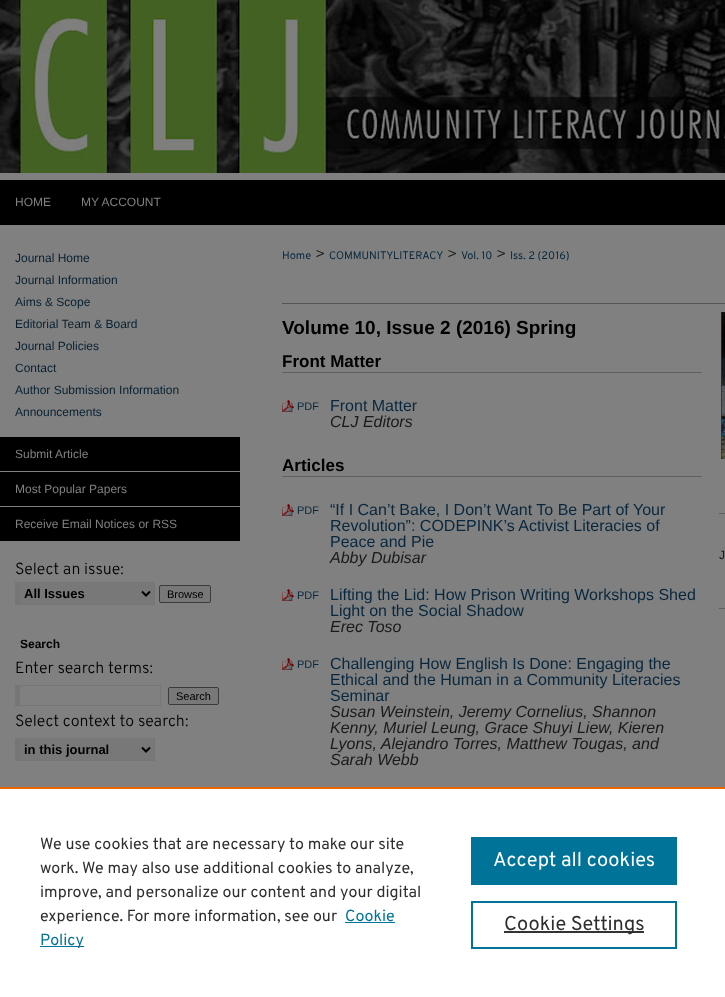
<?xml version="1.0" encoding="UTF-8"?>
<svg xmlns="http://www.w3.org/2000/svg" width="725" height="997">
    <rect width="100%" height="100%" fill="#808080"/>
    <image x="0" y="0" width="725" height="173" href="img_01.png"/>
    <rect x="0" y="180" width="725" height="45" fill="#000000"/>
    <text x="15" y="206" font-family="Liberation Sans" font-size="12" fill="#808080">HOME</text>
    <text x="81" y="206" font-family="Liberation Sans" font-size="12" fill="#808080">MY ACCOUNT</text>
    <text font-family="Liberation Sans" font-size="12" fill="#072031">
        <tspan x="15" y="262">Journal Home</tspan>
        <tspan x="15" y="284">Journal Information</tspan>
        <tspan x="15" y="306">Aims &amp; Scope</tspan>
        <tspan x="15" y="328">Editorial Team &amp; Board</tspan>
        <tspan x="15" y="350">Journal Policies</tspan>
        <tspan x="15" y="372">Contact</tspan>
        <tspan x="15" y="394">Author Submission Information</tspan>
        <tspan x="15" y="416">Announcements</tspan>
    </text>
    <rect x="0" y="437" width="240" height="34" fill="#000000"/>
    <text x="15" y="458" font-family="Liberation Sans" font-size="12" fill="#808080">Submit Article</text>
    <rect x="0" y="472" width="240" height="34" fill="#000000"/>
    <text x="15" y="493" font-family="Liberation Sans" font-size="12" fill="#808080">Most Popular Papers</text>
    <rect x="0" y="507" width="240" height="34" fill="#000000"/>
    <text x="15" y="528" font-family="Liberation Sans" font-size="12" fill="#808080">Receive Email Notices or RSS</text>
    <text x="15" y="574" font-family="Overpass" font-size="16" font-weight="300" fill="#000000">Select an issue:</text>
    <rect x="20" y="583" width="134" height="21" fill="#787878"/>
    <rect x="15" y="582" width="140" height="1" fill="#767676"/>
    <rect x="154" y="582" width="1" height="23" fill="#767676"/>
    <rect x="15" y="604" width="140" height="1" fill="#767676"/>
    <rect x="15" y="582" width="5" height="23" fill="#767676"/>
    <path d="M 142 591.5 L 146 595.5 L 150 591.5" fill="none" stroke="#000000" stroke-width="2"/>
    <text x="24" y="598" font-family="Liberation Sans" font-size="13" font-weight="700" fill="#000000">All Issues</text>
    <rect x="159.5" y="585.5" width="51" height="17" rx="1.5" fill="#787878" stroke="#3B3B3B"/>
    <text x="167" y="598" font-family="Liberation Sans" font-size="11" fill="#000000">Browse</text>
    <text x="20" y="648" font-family="Liberation Sans" font-size="12" font-weight="700" fill="#000000">Search</text>
    <text x="15" y="673" font-family="Overpass" font-size="16" font-weight="300" fill="#000000">Enter search terms:</text>
    <rect x="15" y="685" width="146" height="1" fill="#767676"/>
    <rect x="160" y="685" width="1" height="21" fill="#767676"/>
    <rect x="15" y="705" width="146" height="1" fill="#767676"/>
    <rect x="15" y="685" width="5" height="21" fill="#767676"/>
    <rect x="168.5" y="687.5" width="50" height="17" rx="1.5" fill="#787878" stroke="#3B3B3B"/>
    <text x="176" y="700" font-family="Liberation Sans" font-size="11" fill="#000000">Search</text>
    <text x="15" y="726" font-family="Overpass" font-size="16" font-weight="300" fill="#000000">Select context to search:</text>
    <rect x="20" y="739" width="134" height="21" fill="#787878"/>
    <rect x="15" y="738" width="140" height="1" fill="#767676"/>
    <rect x="154" y="738" width="1" height="23" fill="#767676"/>
    <rect x="15" y="760" width="140" height="1" fill="#767676"/>
    <rect x="15" y="738" width="5" height="23" fill="#767676"/>
    <path d="M 142 747.5 L 146 751.5 L 150 747.5" fill="none" stroke="#000000" stroke-width="2"/>
    <text x="24" y="754" font-family="Liberation Sans" font-size="13" font-weight="700" fill="#000000">in this journal</text>
    <text x="282" y="259" font-family="Overpass" font-size="11" fill="#08273E">Home</text>
    <text x="315" y="259" font-family="Overpass" font-size="16" font-weight="300" fill="#1A1A1A">&gt;</text>
    <text x="329" y="259" font-family="Overpass" font-size="11" fill="#08273E">COMMUNITYLITERACY</text>
    <text x="447" y="259" font-family="Overpass" font-size="16" font-weight="300" fill="#1A1A1A">&gt;</text>
    <text x="461" y="259" font-family="Overpass" font-size="11" fill="#08273E">Vol. 10</text>
    <text x="496" y="259" font-family="Overpass" font-size="16" font-weight="300" fill="#1A1A1A">&gt;</text>
    <text x="510" y="259" font-family="Overpass" font-size="11" fill="#08273E">Iss. 2 (2016)</text>
    <rect x="282" y="303" width="443" height="1" fill="#555555"/>
    <text x="282" y="334" font-family="Liberation Sans" font-size="19" font-weight="700" fill="#000000">Volume 10, Issue 2 (2016) Spring</text>
    <rect x="282" y="372" width="420" height="1" fill="#606060"/>
    <text x="282" y="367" font-family="Liberation Sans" font-size="17" font-weight="700" fill="#000000">Front Matter</text>
    <image x="282" y="400" width="12" height="12" href="img_02.png"/>
    <text x="297" y="410" font-family="Liberation Sans" font-size="11" fill="#08273E">PDF</text>
    <text x="330" y="411" font-family="Liberation Sans" font-size="16" fill="#08273E">Front Matter</text>
    <text x="330" y="427" font-family="Liberation Sans" font-size="16" font-style="italic" fill="#1A1A1A">CLJ Editors</text>
    <rect x="282" y="476" width="420" height="1" fill="#606060"/>
    <text x="282" y="471" font-family="Liberation Sans" font-size="17" font-weight="700" fill="#000000">Articles</text>
    <image x="282" y="504" width="12" height="12" href="img_02.png"/>
    <text x="297" y="514" font-family="Liberation Sans" font-size="11" fill="#08273E">PDF</text>
    <text font-family="Liberation Sans" font-size="16" fill="#08273E">
        <tspan x="330" y="515">“If I Can’t Bake, I Don’t Want To Be Part of Your</tspan>
        <tspan x="330" y="531">Revolution”: CODEPINK’s Activist Literacies of</tspan>
        <tspan x="330" y="547">Peace and Pie</tspan>
    </text>
    <text x="330" y="563" font-family="Liberation Sans" font-size="16" font-style="italic" fill="#1A1A1A">Abby Dubisar</text>
    <image x="282" y="589" width="12" height="12" href="img_02.png"/>
    <text x="297" y="599" font-family="Liberation Sans" font-size="11" fill="#08273E">PDF</text>
    <text font-family="Liberation Sans" font-size="16" fill="#08273E">
        <tspan x="330" y="600">Lifting the Lid: How Prison Writing Workshops Shed</tspan>
        <tspan x="330" y="616">Light on the Social Shadow</tspan>
    </text>
    <text x="330" y="632" font-family="Liberation Sans" font-size="16" font-style="italic" fill="#1A1A1A">Erec Toso</text>
    <image x="282" y="658" width="12" height="12" href="img_02.png"/>
    <text x="297" y="668" font-family="Liberation Sans" font-size="11" fill="#08273E">PDF</text>
    <text font-family="Liberation Sans" font-size="16" fill="#08273E">
        <tspan x="330" y="669">Challenging How English Is Done: Engaging the</tspan>
        <tspan x="330" y="685">Ethical and the Human in a Community Literacies</tspan>
        <tspan x="330" y="701">Seminar</tspan>
    </text>
    <text font-family="Liberation Sans" font-size="16" font-style="italic" fill="#1A1A1A">
        <tspan x="330" y="717">Susan Weinstein, Jeremy Cornelius, Shannon</tspan>
        <tspan x="330" y="733">Kenny, Muriel Leung, Grace Shuyi Liew, Kieren</tspan>
        <tspan x="330" y="749">Lyons, Alejandro Torres, Matthew Tougas, and</tspan>
        <tspan x="330" y="765">Sarah Webb</tspan>
    </text>
    <image x="721" y="312" width="4" height="147" href="img_03.png"/>
    <rect x="719" y="513" width="6" height="1" fill="#606060"/>
    <text x="719" y="559" font-family="Liberation Sans" font-size="12" fill="#1A1A1A">J</text>
    <rect x="719" y="608" width="6" height="1" fill="#606060"/>
    <rect x="0" y="789" width="725" height="208" fill="#FFFFFF"/>
    <rect x="0" y="787" width="725" height="2" fill="#EB6500"/>
    <text font-family="Overpass" font-size="16" fill="#2E2E2E">
        <tspan x="40" y="849">We use cookies that are necessary to make our site</tspan>
        <tspan x="40" y="873">work. We may also use additional cookies to analyze,</tspan>
        <tspan x="40" y="897">improve, and personalize our content and your digital</tspan>
        <tspan x="40" y="921">experience. For more information, see our</tspan>
    </text>
    <text x="345" y="921" font-family="Overpass" font-size="16" fill="#007398">Cookie</text>
    <rect x="345" y="922" width="50" height="1" fill="#007398"/>
    <rect x="40" y="946" width="44" height="1" fill="#007398"/>
    <text x="40" y="945" font-family="Overpass" font-size="16" fill="#007398">Policy</text>
    <rect x="471" y="837" width="206" height="48" fill="#007398"/>
    <text x="493" y="866" font-family="Overpass" font-size="20" fill="#FFFFFF">Accept all cookies</text>
    <rect x="472" y="902" width="204" height="46" fill="none" stroke="#007398" stroke-width="2"/>
    <rect x="504" y="931" width="140" height="2" fill="#333333"/>
    <text x="504" y="930" font-family="Overpass" font-size="20" fill="#2E2E2E">Cookie Settings</text>
</svg>
